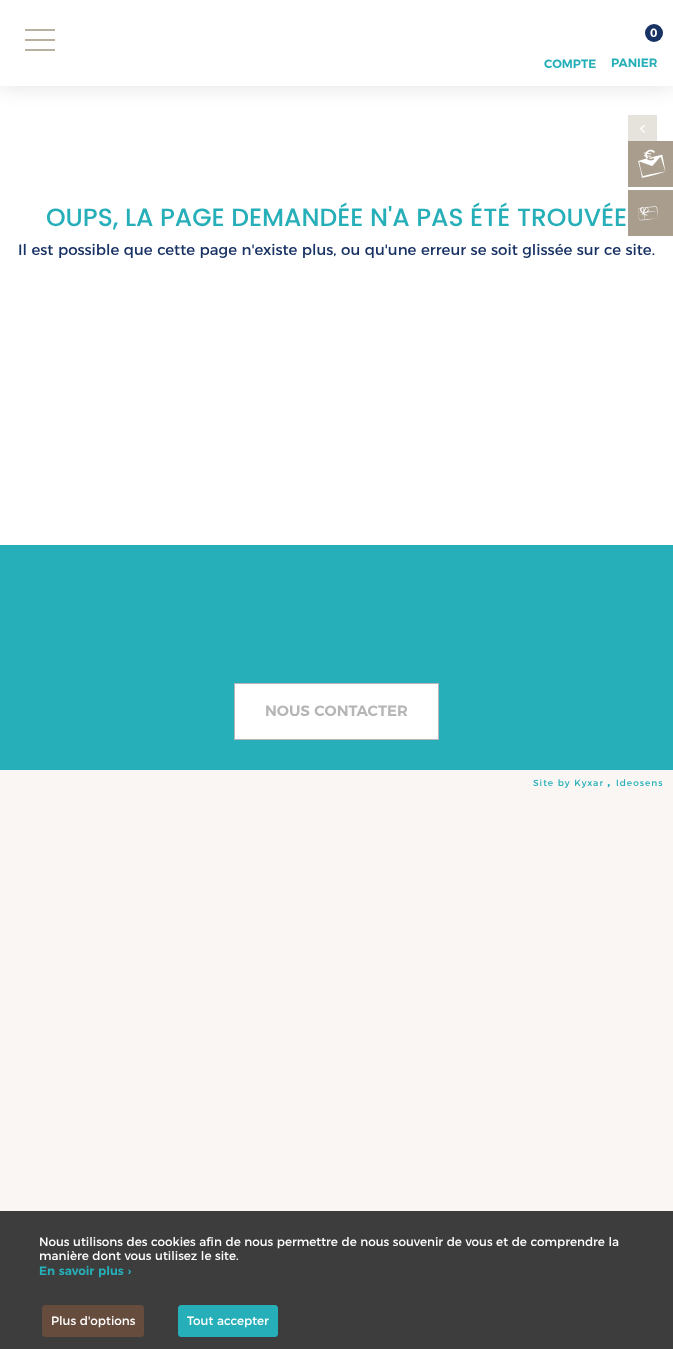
<?xml version="1.0" encoding="UTF-8"?>
<svg xmlns="http://www.w3.org/2000/svg" width="673" height="1349">
    <defs>
        <filter id="blur1" x="-50%" y="-200%" width="200%" height="500%"><feGaussianBlur stdDeviation="10"/></filter>
    </defs>
    <rect width="100%" height="100%" fill="#F9F6F4"/>
    <rect x="0" y="86" width="673" height="459" fill="#FFFFFF"/>
    <rect x="0" y="2" width="673" height="86" fill="#000000" fill-opacity="0.1" filter="url(#blur1)"/>
    <rect x="0" y="0" width="673" height="86" fill="#FFFFFF"/>
    <rect x="25" y="39" width="30" height="2" fill="#BAB09F"/>
    <rect x="25" y="29" width="30" height="2" fill="#BAB09F"/>
    <rect x="25" y="49" width="30" height="2" fill="#BAB09F"/>
    <text x="544" y="68" font-family="Montserrat" font-size="12" font-weight="600" fill="#26AFB8">COMPTE</text>
    <circle cx="654" cy="33" r="9" fill="#183264"/>
    <text x="650" y="37" font-family="Montserrat" font-size="12" font-weight="600" fill="#FFFFFF">0</text>
    <text x="611" y="67" font-family="Montserrat" font-size="12" font-weight="600" fill="#26AFB8">PANIER</text>
    <rect x="628" y="115" width="29" height="26" fill="#E6E3DD"/>
    <text x="647" y="123" transform="rotate(180 647 123)" font-family="Poppins" font-size="16" fill="#FFFFFF">&gt;</text>
    <rect x="628" y="141" width="45" height="46" fill="#A99E8E"/>
    <image x="638" y="149" width="28" height="29" href="img_01.png"/>
    <rect x="628" y="190" width="45" height="46" fill="#A99E8E"/>
    <image x="638" y="206" width="20" height="15" href="img_02.png"/>
    <text x="46" y="226" font-family="Poppins" font-size="25" font-weight="500" fill="#26AFB8">OUPS, LA PAGE DEMANDÉE N'A PAS ÉTÉ TROUVÉE</text>
    <text x="18" y="255" font-family="Montserrat" font-size="15" fill="#183264">Il est possible que cette page n'existe plus, ou qu'une erreur se soit glissée sur ce site.</text>
    <rect x="0" y="545" width="673" height="225" fill="#26AFB8"/>
    <rect x="234.5" y="683.5" width="204" height="56" fill="#FFFFFF" stroke="#B7B5B5"/>
    <text x="265" y="716" font-family="Montserrat" font-size="15" font-weight="600" fill="#B7B5B5">NOUS CONTACTER</text>
    <text x="533" y="786" font-family="Montserrat" font-size="9" letter-spacing="1" fill="#26AFB8">Site by Kyxar</text>
    <text x="607" y="786" font-family="Montserrat" font-size="16" fill="#26AFB8">,</text>
    <text x="616" y="786" font-family="Montserrat" font-size="9" letter-spacing="1" fill="#26AFB8">Ideosens</text>
    <rect x="0" y="1211" width="673" height="138" fill="#3D3D3D"/>
    <text font-family="Montserrat" font-size="12" fill="#FFFFFF">
        <tspan x="39" y="1246">Nous utilisons des cookies afin de nous permettre de nous souvenir de vous et de comprendre la</tspan>
        <tspan x="39" y="1260">manière dont vous utilisez le site.</tspan>
    </text>
    <text x="39" y="1275" font-family="Montserrat" font-size="12" font-weight="600" fill="#26AFB8">En savoir plus ›</text>
    <rect x="42.5" y="1305.5" width="101" height="31" rx="2.5" fill="#664C3D" stroke="#664C3D"/>
    <text x="51" y="1325" font-family="Montserrat" font-size="12" fill="#FFFFFF">Plus d'options</text>
    <rect x="178.5" y="1305.5" width="99" height="31" rx="2.5" fill="#26AFB8" stroke="#26AFB8"/>
    <text x="187" y="1325" font-family="Montserrat" font-size="12" fill="#FFFFFF">Tout accepter</text>
</svg>
